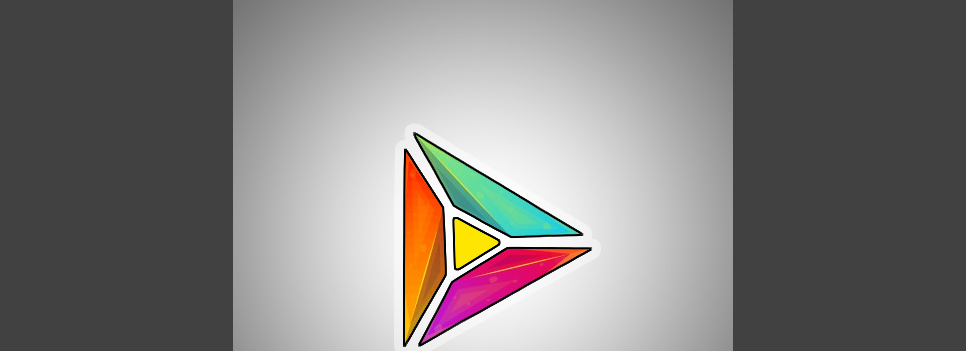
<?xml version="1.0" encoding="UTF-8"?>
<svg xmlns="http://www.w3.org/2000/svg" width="966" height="351">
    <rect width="100%" height="100%" fill="#414141"/>
    <image x="233" y="0" width="500" height="351" href="img_01.png"/>
</svg>
